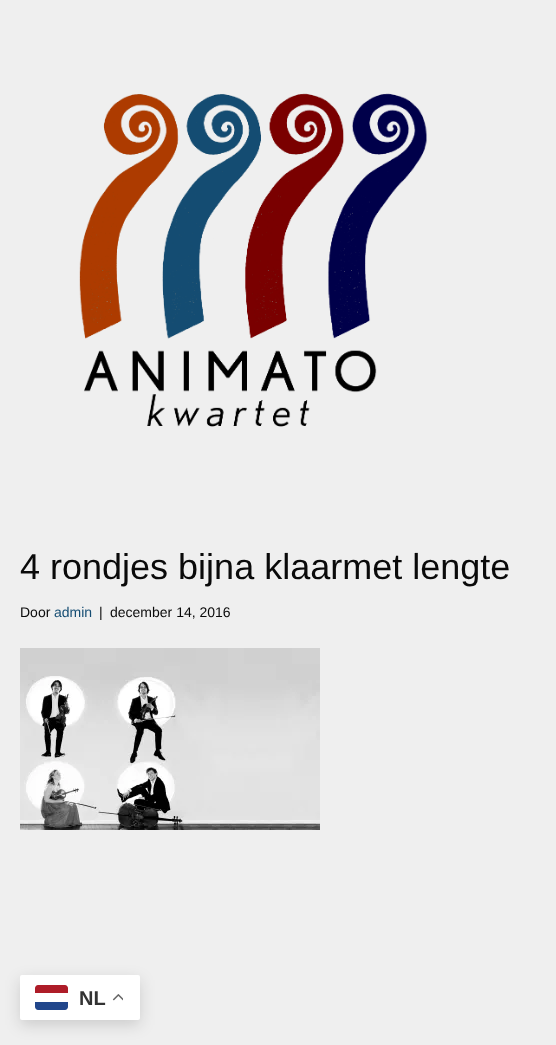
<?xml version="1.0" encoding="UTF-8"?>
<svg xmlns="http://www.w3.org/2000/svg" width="556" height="1045">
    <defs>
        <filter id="blur1" x="-50%" y="-200%" width="200%" height="500%"><feGaussianBlur stdDeviation="7.5"/></filter>
    </defs>
    <rect width="100%" height="100%" fill="#EFEFEF"/>
    <image x="79" y="93" width="348" height="334" href="img_01.png"/>
    <text x="20" y="579" font-family="Liberation Sans" font-size="36" fill="#0A0A0A">4 rondjes bijna klaarmet lengte</text>
    <text x="20" y="617" font-family="Liberation Sans" font-size="14" fill="#0A0A0A">Door</text>
    <text x="54" y="617" font-family="Liberation Sans" font-size="14" fill="#144C72">admin</text>
    <text x="99" y="617" font-family="Liberation Sans" font-size="14" fill="#0A0A0A">|</text>
    <text x="110" y="617" font-family="Liberation Sans" font-size="14" fill="#0A0A0A">december 14, 2016</text>
    <image x="20" y="648" width="300" height="182" href="img_02.png"/>
    <rect x="20" y="980" width="120" height="45" rx="2" fill="#000000" fill-opacity="0.15" filter="url(#blur1)"/>
    <rect x="20" y="975" width="120" height="45" rx="2" fill="#FFFFFF"/>
    <path d="M 35 1002 H 68 V 1007 C 68 1008.5 66.5 1010 65 1010 H 38 C 36.5 1010 35 1008.5 35 1007 Z" fill="#21468B"/>
    <path d="M 38 985 H 65 C 66.5 985 68 986.5 68 988 V 993 H 35 V 988 C 35 986.5 36.5 985 38 985 Z" fill="#AE1C28"/>
    <text x="79" y="1005" font-family="Liberation Sans" font-size="20" font-weight="700" fill="#333333">NL</text>
    <image x="112" y="994" width="11" height="7" href="img_03.png"/>
</svg>
